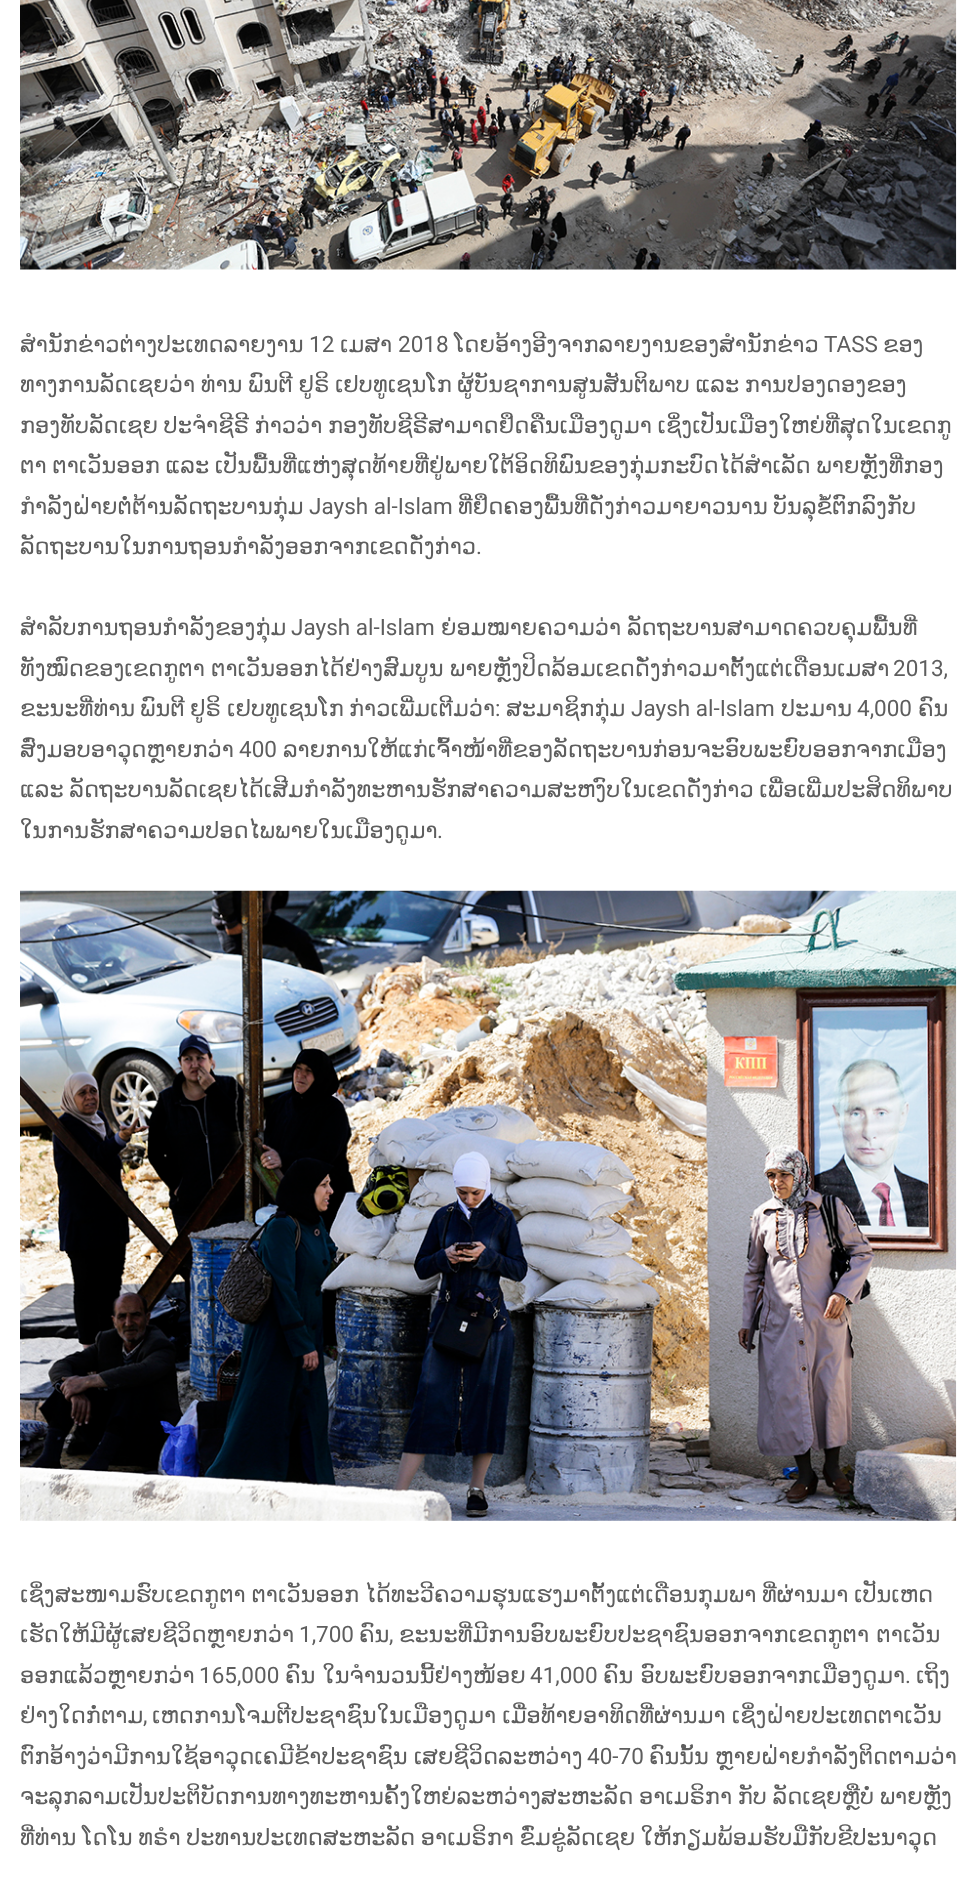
<?xml version="1.0" encoding="UTF-8"?>
<svg xmlns="http://www.w3.org/2000/svg" width="976" height="1877">
    <defs>
        <clipPath id="clip1"><rect x="20" y="0" width="936" height="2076"/></clipPath>
    </defs>
    <rect width="100%" height="100%" fill="#FFFFFF"/>
    <image x="20" y="0" width="937" height="270" href="img_01.png"/>
    <g clip-path="url(#clip1)">
        <text x="20" y="352" font-family="DejaVu Sans" font-size="22.5" fill="#5E5E5E">ສຳນັກຂ່າວຕ່າງປະເທດລາຍງານ</text>
    </g>
    <text x="309" y="352" font-family="Roboto" font-size="22.5" fill="#5E5E5E">12</text>
    <text x="340" y="352" font-family="DejaVu Sans" font-size="22.5" fill="#5E5E5E">ເມສາ</text>
    <text x="398" y="352" font-family="Roboto" font-size="22.5" fill="#5E5E5E">2018</text>
    <text x="454" y="352" font-family="DejaVu Sans" font-size="22.5" fill="#5E5E5E">ໂດຍອ້າງອີງຈາກລາຍງານຂອງສຳນັກຂ່າວ</text>
    <text x="824" y="352" font-family="Roboto" font-size="22.5" fill="#5E5E5E">TASS</text>
    <text x="883" y="352" font-family="DejaVu Sans" font-size="22.5" fill="#5E5E5E">ຂອງ</text>
    <text font-family="DejaVu Sans" font-size="22.5" fill="#5E5E5E">
        <tspan x="20" y="392" word-spacing="-1.5">ທາງການລັດເຊຍວ່າ ທ່ານ ພົນຕີ ຢູຣິ ເຢບທູເຊນໂກ ຜູ້ບັນຊາການສູນສັນຕິພາບ ແລະ ການປອງດອງຂອງ</tspan>
        <tspan x="20" y="433" word-spacing="-1.5">ກອງທັບລັດເຊຍ ປະຈຳຊີຣີ ກ່າວວ່າ ກອງທັບຊີຣີສາມາດຢຶດຄືນເມືອງດູມາ ເຊິ່ງເປັນເມືອງໃຫຍ່ທີ່ສຸດໃນເຂດກູ</tspan>
        <tspan x="20" y="473" word-spacing="-1.5">ຕາ ຕາເວັນອອກ ແລະ ເປັນພື້ນທີ່ແຫ່ງສຸດທ້າຍທີ່ຢູ່ພາຍໃຕ້ອິດທິພົນຂອງກຸ່ມກະບົດໄດ້ສຳເລັດ ພາຍຫຼັງທີ່ກອງ</tspan>
    </text>
    <g clip-path="url(#clip1)">
        <text x="20" y="514" font-family="DejaVu Sans" font-size="22.5" fill="#5E5E5E">ກຳລັງຝ່າຍຕໍ່ຕ້ານລັດຖະບານກຸ່ມ</text>
    </g>
    <text x="309" y="514" font-family="Roboto" font-size="22.5" fill="#5E5E5E">Jaysh al-Islam</text>
    <text x="458" y="514" font-family="DejaVu Sans" font-size="22.5" fill="#5E5E5E">ທີ່ຢຶດຄອງພື້ນທີ່ດັ່ງກ່າວມາຍາວນານ</text>
    <text x="773" y="514" font-family="DejaVu Sans" font-size="22.5" fill="#5E5E5E">ບັນລຸຂໍ້ຕົກລົງກັບ</text>
    <g clip-path="url(#clip1)">
        <text x="20" y="554" font-family="DejaVu Sans" font-size="22.5" fill="#5E5E5E">ລັດຖະບານໃນການຖອນກຳລັງອອກຈາກເຂດດັ່ງກ່າວ</text>
    </g>
    <text x="476" y="554" font-family="Roboto" font-size="22.5" fill="#5E5E5E">.</text>
    <g clip-path="url(#clip1)">
        <text x="20" y="635" font-family="DejaVu Sans" font-size="22.5" fill="#5E5E5E">ສຳລັບການຖອນກຳລັງຂອງກຸ່ມ</text>
    </g>
    <text x="291" y="635" font-family="Roboto" font-size="22.5" fill="#5E5E5E">Jaysh al-Islam</text>
    <text x="441" y="635" font-family="DejaVu Sans" font-size="22.5" fill="#5E5E5E">ຍ່ອມໝາຍຄວາມວ່າ</text>
    <text x="627" y="635" font-family="DejaVu Sans" font-size="22.5" fill="#5E5E5E">ລັດຖະບານສາມາດຄວບຄຸມພື້ນທີ່</text>
    <g clip-path="url(#clip1)">
        <text x="20" y="676" word-spacing="-1" font-family="DejaVu Sans" font-size="22.5" fill="#5E5E5E">ທັງໝົດຂອງເຂດກູຕາ ຕາເວັນອອກໄດ້ຢ່າງສົມບູນ ພາຍຫຼັງປິດລ້ອມເຂດດັ່ງກ່າວມາຕັ້ງແຕ່ເດືອນເມສາ</text>
    </g>
    <text x="893" y="676" font-family="Roboto" font-size="22.5" fill="#5E5E5E">2013,</text>
    <text x="20" y="716" font-family="DejaVu Sans" font-size="22.5" fill="#5E5E5E">ຂະນະທີ່ທ່ານ</text>
    <text x="140" y="716" font-family="DejaVu Sans" font-size="22.5" fill="#5E5E5E">ພົນຕີ</text>
    <text x="190" y="716" font-family="DejaVu Sans" font-size="22.5" fill="#5E5E5E">ຢູຣິ</text>
    <text x="227" y="716" font-family="DejaVu Sans" font-size="22.5" fill="#5E5E5E">ເຢບທູເຊນໂກ</text>
    <text x="349" y="716" font-family="DejaVu Sans" font-size="22.5" fill="#5E5E5E">ກ່າວເພີ່ມເຕີມວ່າ</text>
    <text x="495" y="716" font-family="Roboto" font-size="22.5" fill="#5E5E5E">:</text>
    <text x="506" y="716" font-family="DejaVu Sans" font-size="22.5" fill="#5E5E5E">ສະມາຊິກກຸ່ມ</text>
    <text x="631" y="716" font-family="Roboto" font-size="22.5" fill="#5E5E5E">Jaysh al-Islam</text>
    <text x="781" y="716" font-family="DejaVu Sans" font-size="22.5" fill="#5E5E5E">ປະມານ</text>
    <text x="857" y="716" font-family="Roboto" font-size="22.5" fill="#5E5E5E">4,000</text>
    <text x="918" y="716" font-family="DejaVu Sans" font-size="22.5" fill="#5E5E5E">ຄົນ</text>
    <g clip-path="url(#clip1)">
        <text x="20" y="757" font-family="DejaVu Sans" font-size="22.5" fill="#5E5E5E">ສົ່ງມອບອາວຸດຫຼາຍກວ່າ</text>
    </g>
    <text x="239" y="757" font-family="Roboto" font-size="22.5" fill="#5E5E5E">400</text>
    <text x="283" y="757" font-family="DejaVu Sans" font-size="22.5" fill="#5E5E5E">ລາຍການໃຫ້ແກ່ເຈົ້າໜ້າທີ່ຂອງລັດຖະບານກ່ອນຈະອົບພະຍົບອອກຈາກເມືອງ</text>
    <text font-family="DejaVu Sans" font-size="22.5" fill="#5E5E5E">
        <tspan x="20" y="797" word-spacing="-1.5">ແລະ ລັດຖະບານລັດເຊຍໄດ້ເສີມກຳລັງທະຫານຮັກສາຄວາມສະຫງົບໃນເຂດດັ່ງກ່າວ ເພື່ອເພີ່ມປະສິດທິພາບ</tspan>
        <tspan x="20" y="838">ໃນການຮັກສາຄວາມປອດໄພພາຍໃນເມືອງດູມາ</tspan>
    </text>
    <text x="437" y="838" font-family="Roboto" font-size="22.5" fill="#5E5E5E">.</text>
    <image x="20" y="890" width="937" height="631" href="img_02.png"/>
    <g clip-path="url(#clip1)">
        <text font-family="DejaVu Sans" font-size="22.5" fill="#5E5E5E">
            <tspan x="20" y="1602" word-spacing="-1.5">ເຊິ່ງສະໜາມຮົບເຂດກູຕາ ຕາເວັນອອກ ໄດ້ທະວີຄວາມຮຸນແຮງມາຕັ້ງແຕ່ເດືອນກຸມພາ ທີ່ຜ່ານມາ ເປັນເຫດ</tspan>
            <tspan x="20" y="1642">ເຮັດໃຫ້ມີຜູ້ເສຍຊີວິດຫຼາຍກວ່າ</tspan>
        </text>
    </g>
    <text x="299" y="1642" font-family="Roboto" font-size="22.5" fill="#5E5E5E">1,700</text>
    <text x="359" y="1642" font-family="DejaVu Sans" font-size="22.5" fill="#5E5E5E">ຄົນ</text>
    <text x="389" y="1642" font-family="Roboto" font-size="22.5" fill="#5E5E5E">,</text>
    <text x="399" y="1642" font-family="DejaVu Sans" font-size="22.5" fill="#5E5E5E">ຂະນະທີ່ມີການອົບພະຍົບປະຊາຊົນອອກຈາກເຂດກູຕາ ຕາເວັນ</text>
    <text x="20" y="1683" font-family="DejaVu Sans" font-size="22.5" fill="#5E5E5E">ອອກແລ້ວຫຼາຍກວ່າ</text>
    <text x="199" y="1683" font-family="Roboto" font-size="22.5" fill="#5E5E5E">165,000</text>
    <text x="285" y="1683" font-family="DejaVu Sans" font-size="22.5" fill="#5E5E5E">ຄົນ ໃນຈຳນວນນີ້ຢ່າງໜ້ອຍ</text>
    <text x="530" y="1683" font-family="Roboto" font-size="22.5" fill="#5E5E5E">41,000</text>
    <text x="603" y="1683" font-family="DejaVu Sans" font-size="22.5" fill="#5E5E5E">ຄົນ ອົບພະຍົບອອກຈາກເມືອງດູມາ</text>
    <text x="905" y="1683" font-family="Roboto" font-size="22.5" fill="#5E5E5E">.</text>
    <text x="916" y="1683" font-family="DejaVu Sans" font-size="22.5" fill="#5E5E5E">ເຖິງ</text>
    <g clip-path="url(#clip1)">
        <text x="20" y="1723" font-family="DejaVu Sans" font-size="22.5" fill="#5E5E5E">ຢ່າງໃດກໍ່ຕາມ</text>
    </g>
    <text x="143" y="1723" font-family="Roboto" font-size="22.5" fill="#5E5E5E">,</text>
    <text x="152" y="1723" word-spacing="-1" font-family="DejaVu Sans" font-size="22.5" fill="#5E5E5E">ເຫດການໂຈມຕີປະຊາຊົນໃນເມືອງດູມາ ເມື່ອທ້າຍອາທິດທີ່ຜ່ານມາ ເຊິ່ງຝ່າຍປະເທດຕາເວັນ</text>
    <g clip-path="url(#clip1)">
        <text x="20" y="1764" word-spacing="-1" font-family="DejaVu Sans" font-size="22.5" fill="#5E5E5E">ຕົກອ້າງວ່າມີການໃຊ້ອາວຸດເຄມີຂ້າປະຊາຊົນ ເສຍຊີວິດລະຫວ່າງ</text>
    </g>
    <text x="587" y="1764" font-family="Roboto" font-size="22.5" fill="#5E5E5E">40-70</text>
    <text x="649" y="1764" word-spacing="-1" font-family="DejaVu Sans" font-size="22.5" fill="#5E5E5E">ຄົນນັ້ນ ຫຼາຍຝ່າຍກຳລັງຕິດຕາມວ່າ</text>
    <text x="20" y="1804" word-spacing="-1.5" font-family="DejaVu Sans" font-size="22.5" fill="#5E5E5E">ຈະລຸກລາມເປັນປະຕິບັດການທາງທະຫານຄັ້ງໃຫຍ່ລະຫວ່າງສະຫະລັດ ອາເມຣິກາ ກັບ ລັດເຊຍຫຼືບໍ່ ພາຍຫຼັງ</text>
    <g clip-path="url(#clip1)">
        <text x="20" y="1845" word-spacing="-1.5" font-family="DejaVu Sans" font-size="22.5" fill="#5E5E5E">ທີ່ທ່ານ ໂດໂນ ທຣຳ ປະທານປະເທດສະຫະລັດ ອາເມຣິກາ ຂົ່ມຂູ່ລັດເຊຍ ໃຫ້ກຽມພ້ອມຮັບມືກັບຂີປະນາວຸດ</text>
    </g>
</svg>
